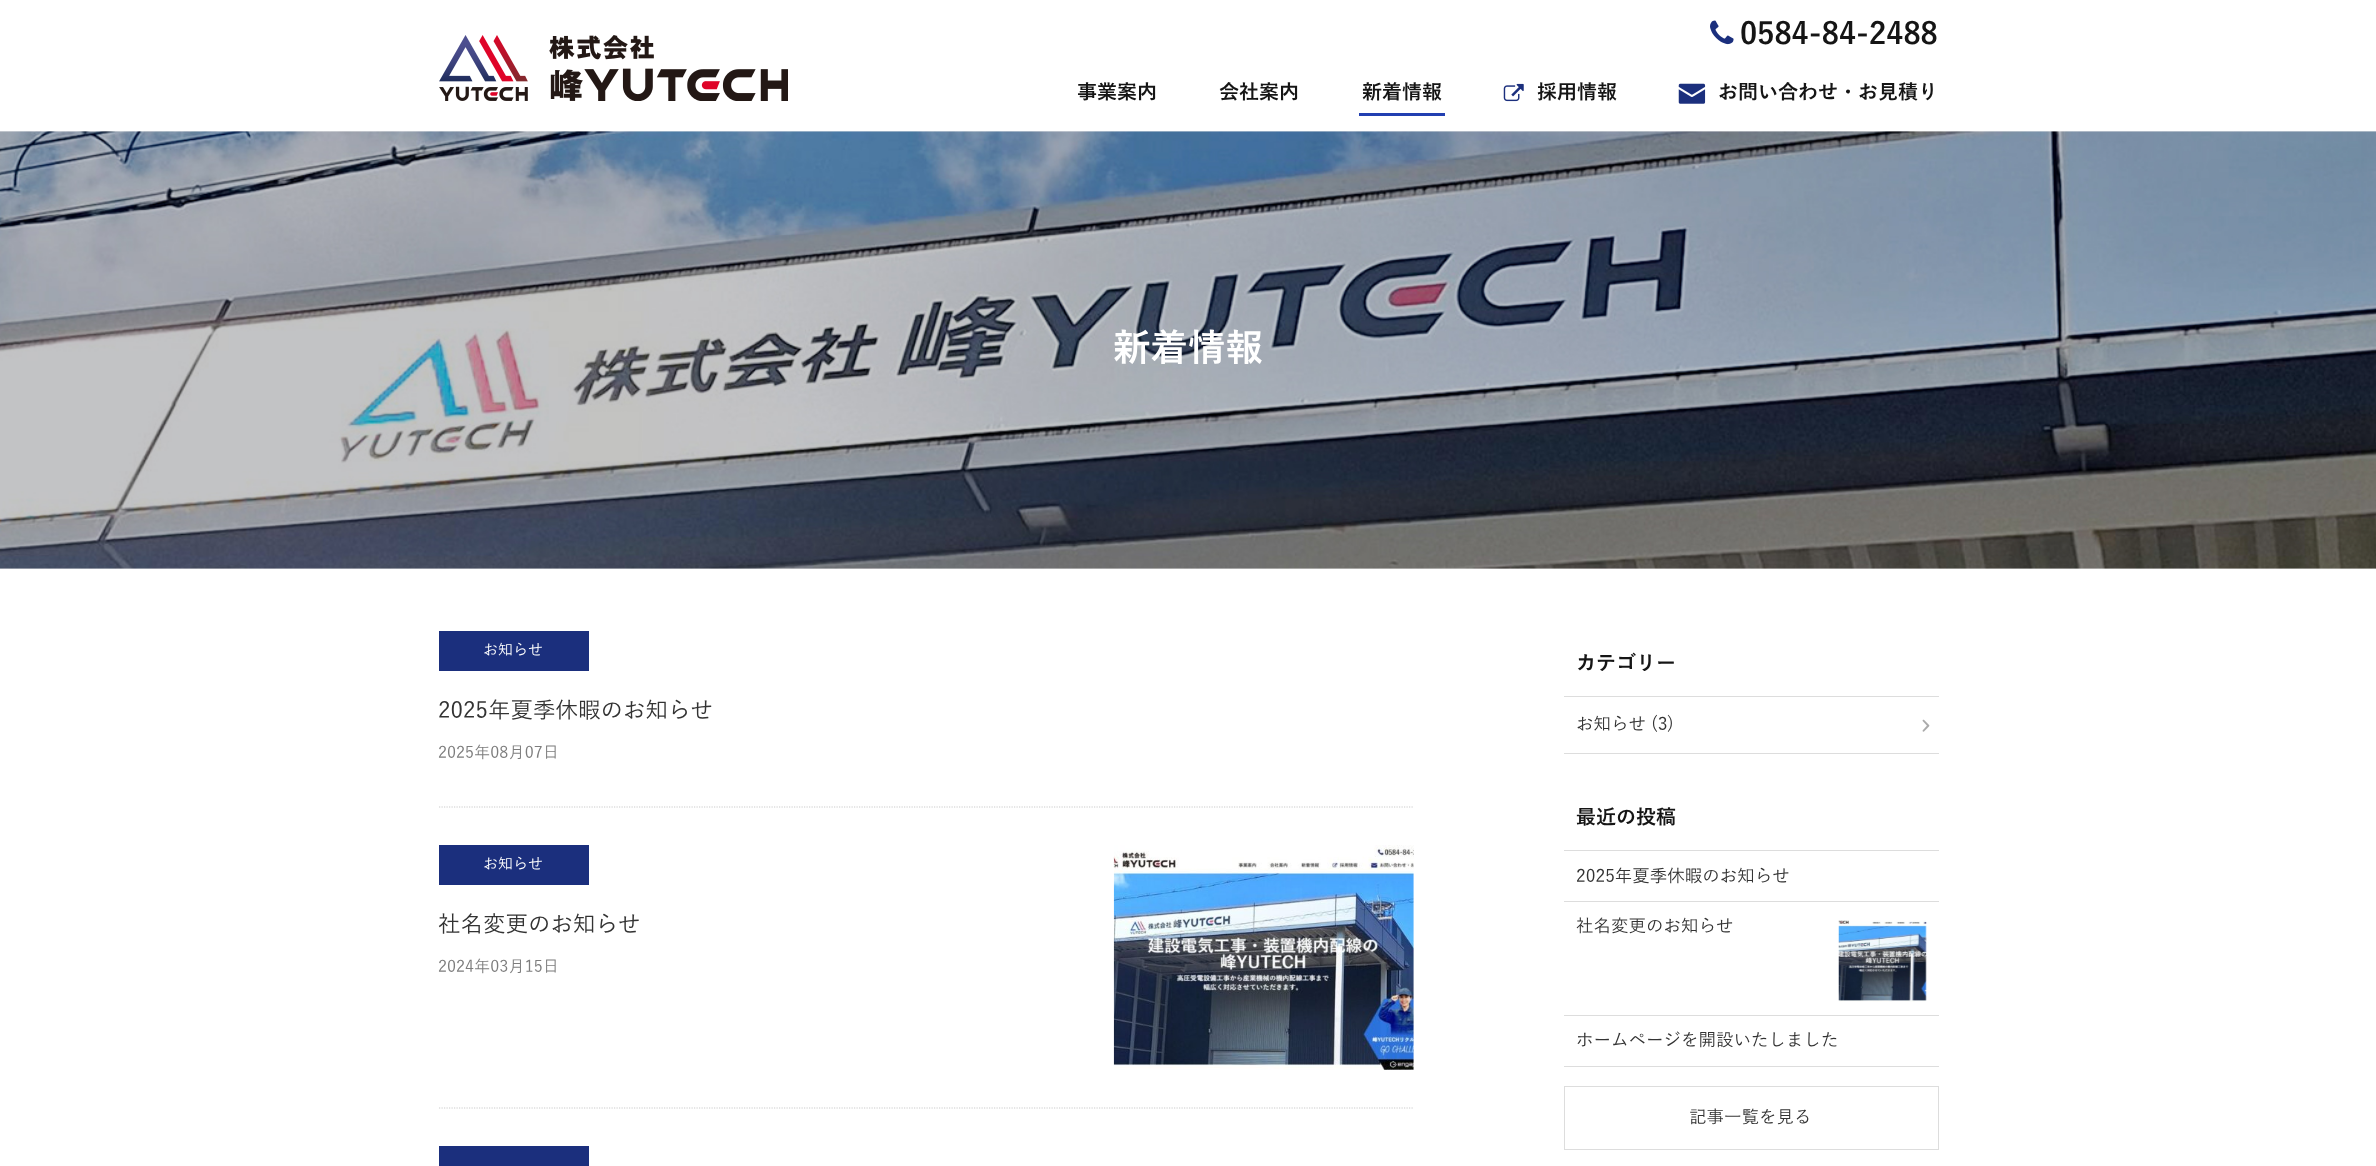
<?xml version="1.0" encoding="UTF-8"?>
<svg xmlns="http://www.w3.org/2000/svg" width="2376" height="1166">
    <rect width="100%" height="100%" fill="#FFFFFF"/>
    <image x="1710" y="20" width="24" height="25" href="img_01.png"/>
    <text x="1740" y="44" font-family="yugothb" font-size="30" font-weight="700" fill="#151515">0584-84-2488</text>
    <image x="439" y="35" width="349" height="66" href="img_02.png"/>
    <text x="1077" y="99" font-family="yugothb" font-size="20" font-weight="700" fill="#151515">事業案内</text>
    <text x="1219" y="99" font-family="yugothb" font-size="20" font-weight="700" fill="#151515">会社案内</text>
    <text x="1362" y="99" font-family="yugothb" font-size="20" font-weight="700" fill="#151515">新着情報</text>
    <rect x="1359" y="113" width="86" height="3" fill="#223FB1"/>
    <image x="1503" y="83" width="21" height="19" href="img_03.png"/>
    <text x="1537" y="99" font-family="yugothb" font-size="20" font-weight="700" fill="#151515">採用情報</text>
    <image x="1678" y="83" width="28" height="21" href="img_04.png"/>
    <text x="1718" y="99" font-family="yugothb" font-size="20" font-weight="700" fill="#151515">お問い合わせ・お見積り</text>
    <rect x="0" y="131" width="2376" height="438" fill="#EEEEEE"/>
    <image x="0" y="131" width="2376" height="438" href="img_05.png"/>
    <text x="1113" y="361" font-family="yugothb" font-size="37.5" font-weight="700" fill="#FFFFFF">新着情報</text>
    <path d="M 439 807 H 1414" fill="none" stroke="#CCCCCC" stroke-width="1.2" stroke-dasharray="1.25 1.25"/>
    <rect x="439" y="631" width="150" height="40" fill="#1B2F7D"/>
    <text x="483" y="655" font-family="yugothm" font-size="15" font-weight="500" fill="#FFFFFF">お知らせ</text>
    <text x="438" y="718" font-family="yugothm" font-size="22.5" font-weight="500" fill="#333333">2025年夏季休暇のお知らせ</text>
    <text x="438" y="758" font-family="yugothm" font-size="16.25" font-weight="500" fill="#7D7D7D">2025年08月07日</text>
    <path d="M 439 1108 H 1414" fill="none" stroke="#CCCCCC" stroke-width="1.2" stroke-dasharray="1.25 1.25"/>
    <rect x="439" y="845" width="150" height="40" fill="#1B2F7D"/>
    <text x="483" y="869" font-family="yugothm" font-size="15" font-weight="500" fill="#FFFFFF">お知らせ</text>
    <text x="438" y="932" font-family="yugothm" font-size="22.5" font-weight="500" fill="#333333">社名変更のお知らせ</text>
    <text x="438" y="972" font-family="yugothm" font-size="16.25" font-weight="500" fill="#7D7D7D">2024年03月15日</text>
    <image x="1113" y="845" width="301" height="225" href="img_06.png"/>
    <rect x="439" y="1146" width="150" height="20" fill="#1B2F7D"/>
    <rect x="1564" y="696" width="375" height="1" fill="#DDDDDD"/>
    <text x="1576" y="670" font-family="yugothb" font-size="20" font-weight="700" fill="#151515">カテゴリー</text>
    <rect x="1564" y="753" width="375" height="1" fill="#DDDDDD"/>
    <text x="1576" y="730" font-family="yugothm" font-size="17.5" font-weight="500" fill="#333333">お知らせ (3)</text>
    <image x="1922" y="719" width="8" height="13" href="img_07.png"/>
    <rect x="1564" y="850" width="375" height="1" fill="#DDDDDD"/>
    <text x="1576" y="824" font-family="yugothb" font-size="20" font-weight="700" fill="#151515">最近の投稿</text>
    <rect x="1564" y="901" width="375" height="1" fill="#DDDDDD"/>
    <text x="1576" y="882" font-family="yugothm" font-size="17.5" font-weight="500" fill="#333333">2025年夏季休暇のお知らせ</text>
    <rect x="1564" y="1015" width="375" height="1" fill="#DDDDDD"/>
    <text x="1576" y="932" font-family="yugothm" font-size="17.5" font-weight="500" fill="#333333">社名変更のお知らせ</text>
    <image x="1838" y="920" width="89" height="82" href="img_08.png"/>
    <rect x="1564" y="1066" width="375" height="1" fill="#DDDDDD"/>
    <text x="1576" y="1046" font-family="yugothm" font-size="17.5" font-weight="500" fill="#333333">ホームページを開設いたしました</text>
    <rect x="1564.5" y="1086.5" width="374" height="63" fill="none" stroke="#DDDDDD"/>
    <text x="1689" y="1123" font-family="yugothm" font-size="17.5" font-weight="500" fill="#333333">記事一覧を見る</text>
</svg>
